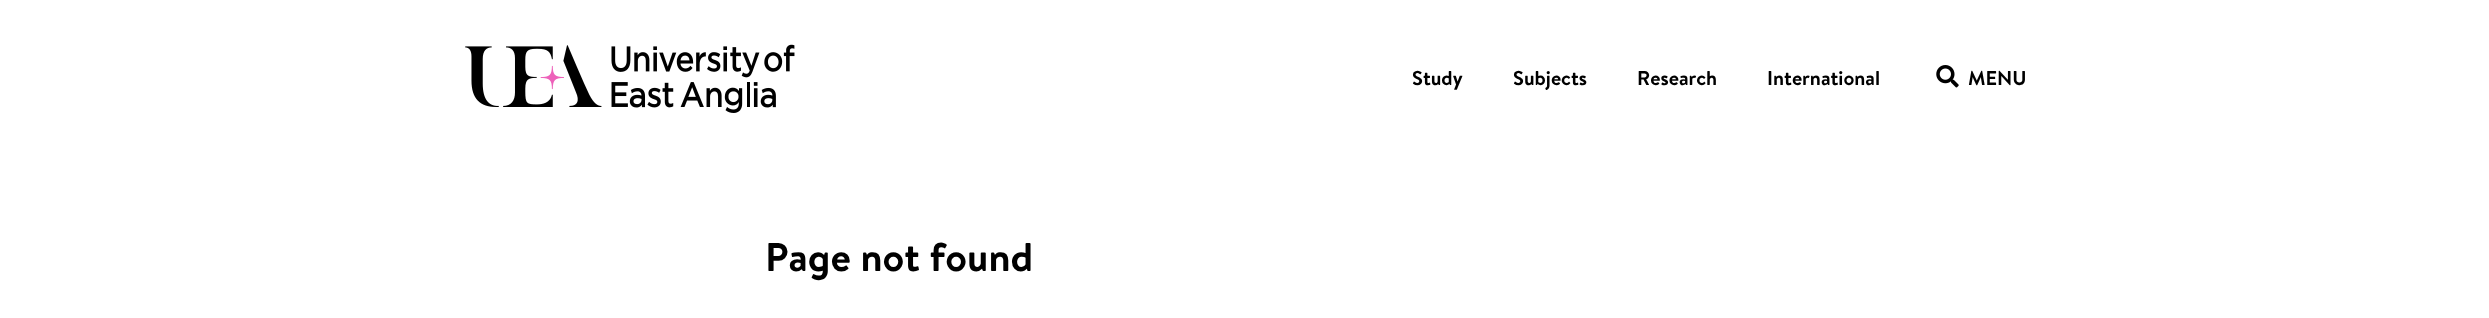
<?xml version="1.0" encoding="UTF-8"?>
<svg xmlns="http://www.w3.org/2000/svg" width="2489" height="318">
    <rect width="100%" height="100%" fill="#FFFFFF"/>
    <image x="465" y="44" width="330" height="69" href="img_01.png"/>
    <text x="1412" y="85" font-family="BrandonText" font-size="20" fill="#000000">Study</text>
    <text x="1513" y="85" font-family="BrandonText" font-size="20" fill="#000000">Subjects</text>
    <text x="1637" y="85" font-family="BrandonText" font-size="20" fill="#000000">Research</text>
    <text x="1767" y="85" font-family="BrandonText" font-size="20" fill="#000000">International</text>
    <image x="1936" y="65" width="23" height="23" href="img_02.png"/>
    <text x="1968" y="85" font-family="BrandonText" font-size="20" fill="#000000">MENU</text>
    <text x="765" y="271" font-family="BrandonText" font-size="40" fill="#000000">Page not found</text>
</svg>
